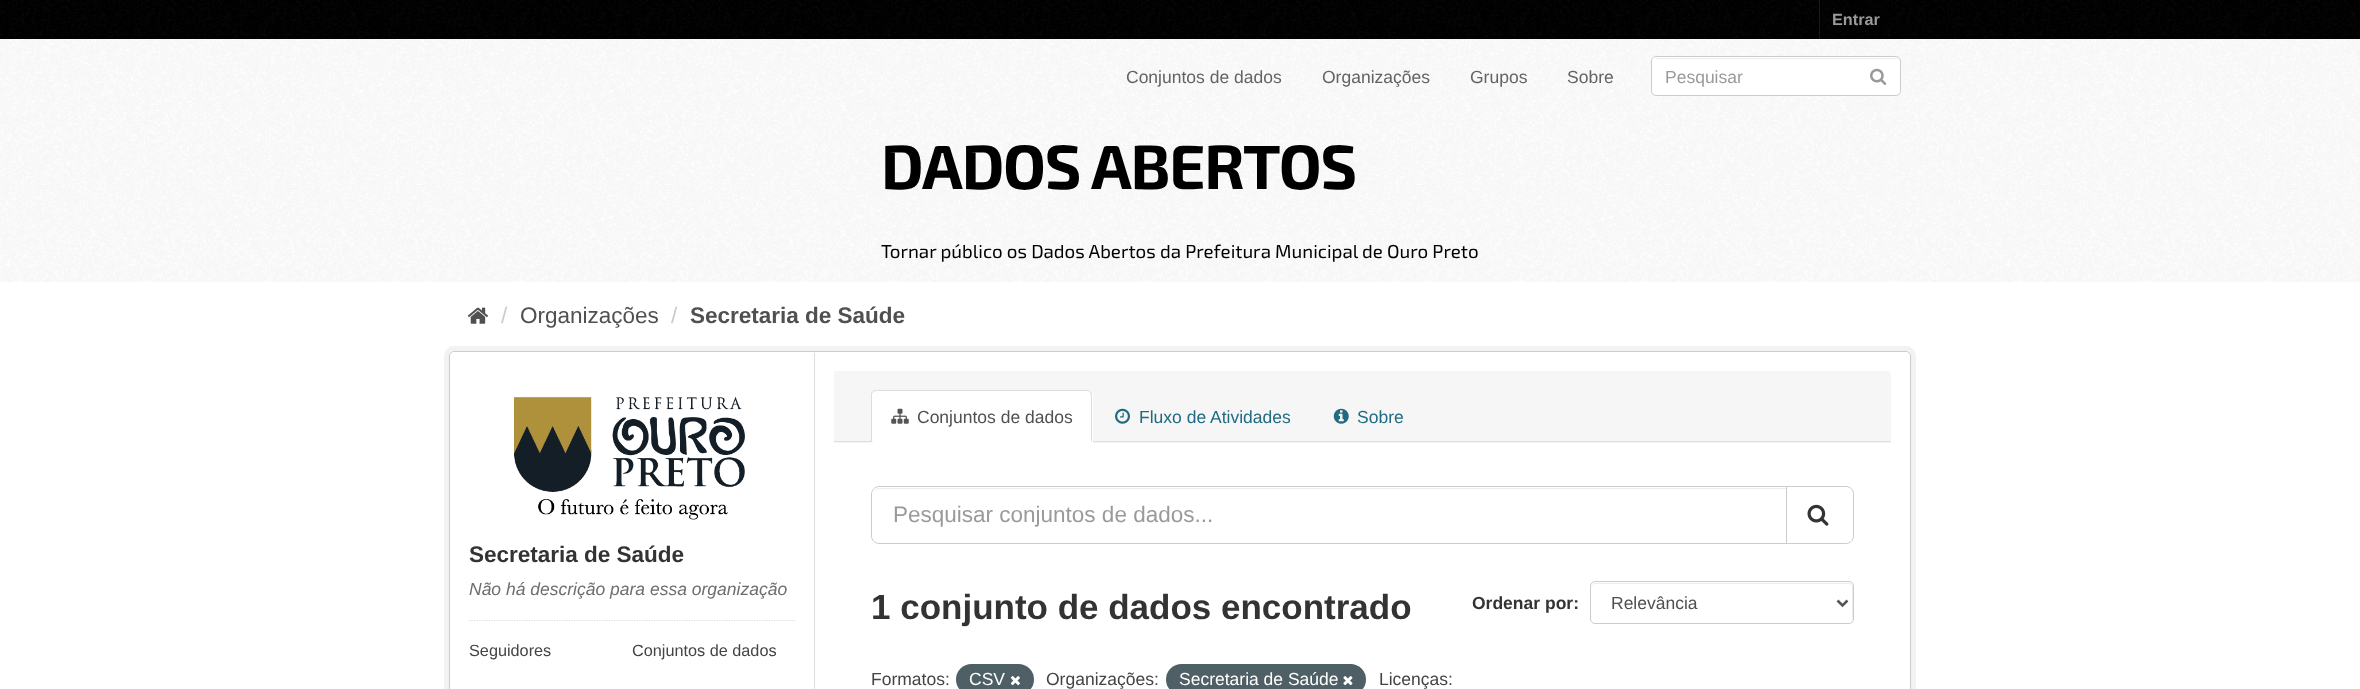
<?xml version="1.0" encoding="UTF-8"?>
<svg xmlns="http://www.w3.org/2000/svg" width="2360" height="689">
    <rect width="100%" height="100%" fill="#000000"/>
    <image x="0" y="0" width="2360" height="38" href="img_01.png"/>
    <rect x="1819" y="0" width="1" height="39" fill="#00232E"/>
    <text x="1832" y="25" font-family="Liberation Sans" font-size="16.25" font-weight="700" fill="#9A9A9A">Entrar</text>
    <rect x="0" y="39" width="2360" height="650" fill="#FFFFFF"/>
    <image x="0" y="39" width="2360" height="243" href="img_02.png"/>
    <text x="1126" y="83" font-family="Liberation Sans" font-size="17.5" fill="#636363">Conjuntos de dados</text>
    <text x="1322" y="83" font-family="Liberation Sans" font-size="17.5" fill="#636363">Organizações</text>
    <text x="1470" y="83" font-family="Liberation Sans" font-size="17.5" fill="#636363">Grupos</text>
    <text x="1567" y="83" font-family="Liberation Sans" font-size="17.5" fill="#636363">Sobre</text>
    <rect x="1651" y="56" width="250" height="40" rx="5" fill="#FFFFFF"/>
    <path d="M 1656 59 H 1896 C 1898 59 1900 60 1900 62 C 1900 60 1898 58 1896 58 H 1657 C 1656 58 1655 59 1654 59 Z" fill="#ECECEC"/>
    <rect x="1651.5" y="56.5" width="249" height="39" rx="4.5" fill="none" stroke="#CCCCCC"/>
    <text x="1665" y="83" font-family="Liberation Sans" font-size="17.5" fill="#9A9A9A">Pesquisar</text>
    <image x="1870" y="68" width="17" height="17" href="img_03.png"/>
    <text x="881" y="189" font-family="'Exo 2'" font-size="62.5" font-weight="700" letter-spacing="-1.25" fill="#000000">DADOS ABERTOS</text>
    <text x="881" y="258" font-family="'Exo 2'" font-size="18.75" fill="#000000">Tornar público os Dados Abertos da Prefeitura Municipal de Ouro Preto</text>
    <image x="467" y="307" width="21" height="17" href="img_04.png"/>
    <text x="501" y="323" font-family="Liberation Sans" font-size="22.5" fill="#CCCCCC">/</text>
    <text x="520" y="323" font-family="Liberation Sans" font-size="22.5" fill="#505050">Organizações</text>
    <text x="671" y="323" font-family="Liberation Sans" font-size="22.5" fill="#CCCCCC">/</text>
    <text x="690" y="323" font-family="Liberation Sans" font-size="22.5" font-weight="700" fill="#505050">Secretaria de Saúde</text>
    <rect x="446.5" y="348.5" width="1467" height="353" rx="7.5" fill="none" stroke="#F2F2F2" stroke-width="5"/>
    <rect x="449.5" y="351.5" width="1461" height="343" rx="4.5" fill="#FFFFFF" stroke="#CCCCCC"/>
    <image x="514" y="397" width="231" height="123" href="img_05.png"/>
    <text x="469" y="562" font-family="Liberation Sans" font-size="22.5" font-weight="700" fill="#333333">Secretaria de Saúde</text>
    <text x="469" y="595" font-family="Liberation Sans" font-size="17.5" font-style="italic" fill="#6E6E6E">Não há descrição para essa organização</text>
    <path d="M 469 620.5 H 795" fill="none" stroke="#DDDDDD" stroke-width="1.2" stroke-dasharray="1.25 1.25"/>
    <text x="469" y="656" font-family="Liberation Sans" font-size="16.25" fill="#444444">Seguidores</text>
    <text x="632" y="656" font-family="Liberation Sans" font-size="16.25" fill="#444444">Conjuntos de dados</text>
    <rect x="814" y="353" width="1" height="336" fill="#DDDDDD"/>
    <path d="M 834 371 H 1887 C 1889 371 1891 373 1891 375 V 443 H 834 Z" fill="#F6F6F6"/>
    <rect x="834" y="441" width="1057" height="1" fill="#DDDDDD"/>
    <path d="M 876 390 H 1088 C 1091 390 1093 392 1093 395 V 443 H 871 V 395 C 871 392 873 390 876 390 Z" fill="#FFFFFF"/>
    <path d="M 876 390 C 875 390 873 390 873 391 V 392 L 876 391 H 1088 L 1090 392 H 1091 C 1090 391 1089 390 1088 390 Z" fill="#DDDDDD"/>
    <path d="M 1091 392 C 1092 392 1092 394 1092 395 V 442 L 1091 441 V 395 L 1090 392 Z" fill="#DDDDDD"/>
    <path d="M 871 393 L 873 391 V 392 L 872 394 V 441 H 873 L 872 442 H 871 Z" fill="#DDDDDD"/>
    <image x="891" y="408" width="18" height="16" href="img_06.png"/>
    <text x="917" y="423" font-family="Liberation Sans" font-size="17.5" fill="#505050">Conjuntos de dados</text>
    <image x="1115" y="408" width="15" height="16" href="img_07.png"/>
    <text x="1139" y="423" font-family="Liberation Sans" font-size="17.5" fill="#206B82">Fluxo de Atividades</text>
    <image x="1333" y="408" width="16" height="16" href="img_08.png"/>
    <text x="1357" y="423" font-family="Liberation Sans" font-size="17.5" fill="#206B82">Sobre</text>
    <path d="M 879 489 H 1786 V 488 H 879 C 877 488 875 489 874 491 C 875 490 877 489 879 489 Z" fill="#ECECEC"/>
    <path d="M 879 486.5 H 1787.5 V 543.5 H 879 C 875 543.5 871.5 540 871.5 536 V 494 C 871.5 490 875 486.5 879 486.5 Z" fill="none" stroke="#CCCCCC"/>
    <text x="893" y="522" font-family="Liberation Sans" font-size="22.5" fill="#9A9A9A">Pesquisar conjuntos de dados...</text>
    <path d="M 1786.5 486.5 H 1846 C 1850 486.5 1853.5 490 1853.5 494 V 536 C 1853.5 540 1850 543.5 1846 543.5 H 1786.5 Z" fill="#FFFFFF" stroke="#CCCCCC"/>
    <image x="1807" y="504" width="22" height="22" href="img_09.png"/>
    <text x="871" y="619" font-family="Liberation Sans" font-size="35" font-weight="700" fill="#333333">1 conjunto de dados encontrado</text>
    <text x="1472" y="609" font-family="Liberation Sans" font-size="17.5" font-weight="700" fill="#333333">Ordenar por:</text>
    <path d="M 1595 584 H 1849 C 1851 584 1852 585 1852 588 V 622 C 1852 621 1853 620 1853 619 V 587 C 1853 585 1851 583 1849 583 H 1595 C 1593 583 1591 585 1591 587 V 588 C 1591 585 1593 584 1595 584 Z" fill="#ECECEC"/>
    <rect x="1590.5" y="581.5" width="263" height="42" rx="4.5" fill="none" stroke="#CCCCCC"/>
    <path d="M 1837.5 600.5 L 1842.5 605.5 L 1847.5 600.5" fill="none" stroke="#555555" stroke-width="2.5"/>
    <text x="1611" y="609" font-family="Liberation Sans" font-size="17.5" fill="#505050">Relevância</text>
    <text x="871" y="685" font-family="Liberation Sans" font-size="17.5" fill="#444444">Formatos:</text>
    <rect x="956" y="664" width="78" height="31" rx="15.5" fill="#4E5F65"/>
    <text x="969" y="685" font-family="Liberation Sans" font-size="17.5" fill="#FFFFFF">CSV</text>
    <image x="1010" y="676" width="10" height="10" href="img_10.png"/>
    <text x="1046" y="685" font-family="Liberation Sans" font-size="17.5" fill="#444444">Organizações:</text>
    <rect x="1166" y="664" width="200" height="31" rx="15.5" fill="#4E5F65"/>
    <text x="1179" y="685" font-family="Liberation Sans" font-size="17.5" fill="#FFFFFF">Secretaria de Saúde</text>
    <image x="1343" y="676" width="10" height="10" href="img_11.png"/>
    <text x="1379" y="685" font-family="Liberation Sans" font-size="17.5" fill="#444444">Licenças:</text>
</svg>
